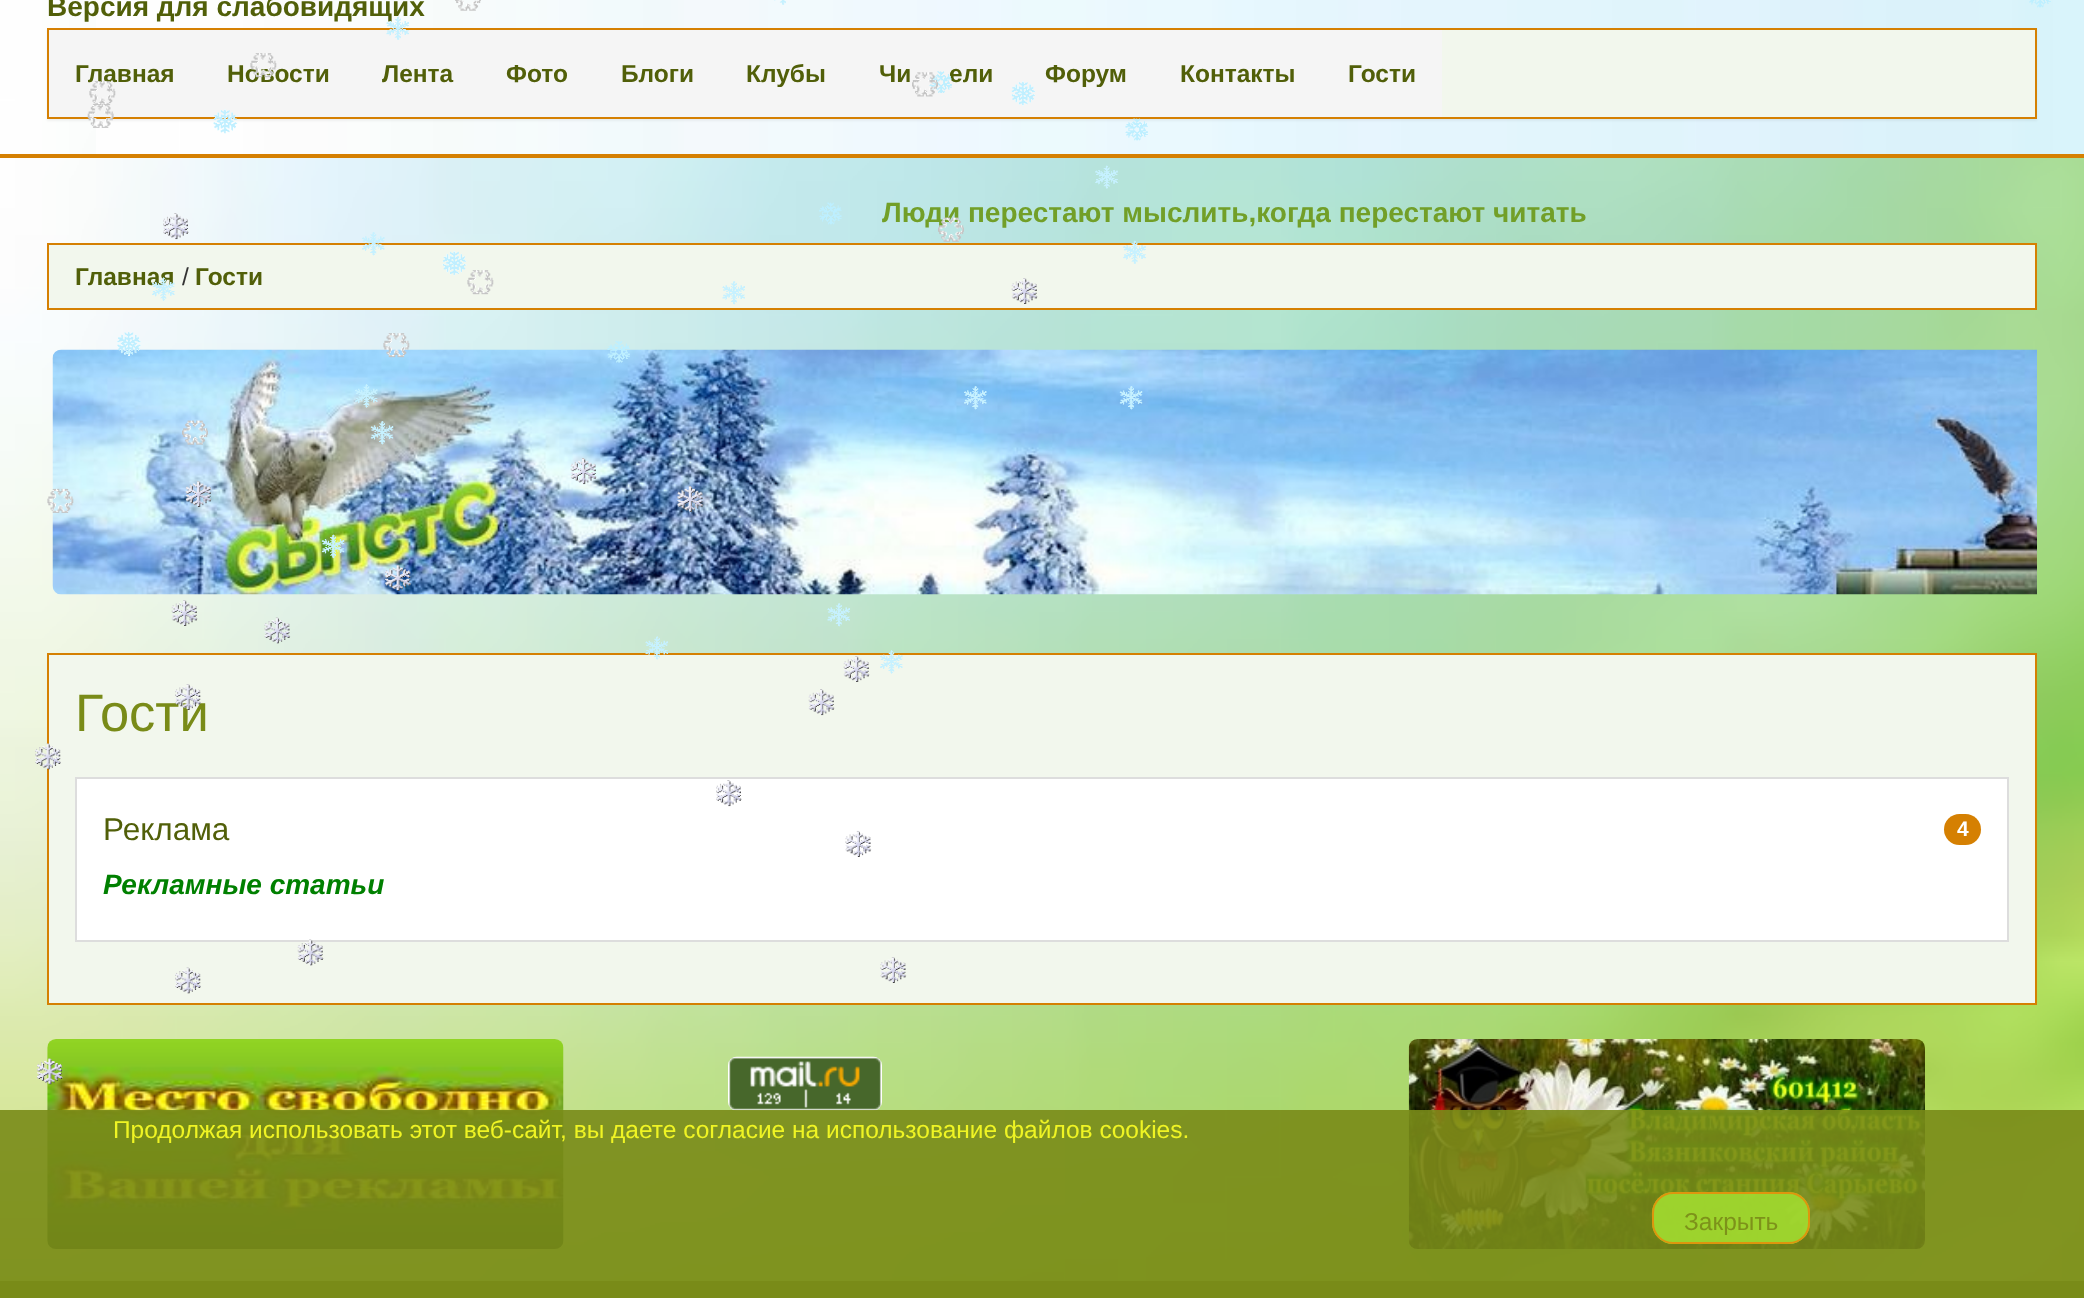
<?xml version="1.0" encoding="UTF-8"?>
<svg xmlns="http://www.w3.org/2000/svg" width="2084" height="1298">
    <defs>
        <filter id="blur1" x="-50%" y="-200%" width="200%" height="500%"><feGaussianBlur stdDeviation="1"/></filter>
    </defs>
    <rect width="100%" height="100%" fill="#FFFFFF"/>
    <image x="0" y="0" width="2084" height="1281" href="img_01.png"/>
    <rect x="0" y="154" width="2084" height="4" fill="#D58002"/>
    <image x="96" y="0" width="1988" height="154" href="img_02.png"/>
    <text x="47" y="16" font-family="Liberation Sans" font-size="28" font-weight="700" fill="#515F09">Версия для слабовидящих</text>
    <rect x="47" y="30" width="1990" height="91" fill="#000000" fill-opacity="0.05" filter="url(#blur1)"/>
    <rect x="1442" y="30" width="593" height="87" fill="#F2F7ED"/>
    <rect x="48" y="29" width="1988" height="89" fill="none" stroke="#D58002" stroke-width="2"/>
    <rect x="49" y="30" width="1393" height="87" fill="#F5F5F5"/>
    <text x="75" y="82" font-family="Liberation Sans" font-size="24.5" font-weight="700" fill="#515F09">Главная</text>
    <text x="227" y="82" font-family="Liberation Sans" font-size="24.5" font-weight="700" fill="#515F09">Новости</text>
    <text x="382" y="82" font-family="Liberation Sans" font-size="24.5" font-weight="700" fill="#515F09">Лента</text>
    <text x="506" y="82" font-family="Liberation Sans" font-size="24.5" font-weight="700" fill="#515F09">Фото</text>
    <text x="621" y="82" font-family="Liberation Sans" font-size="24.5" font-weight="700" fill="#515F09">Блоги</text>
    <text x="746" y="82" font-family="Liberation Sans" font-size="24.5" font-weight="700" fill="#515F09">Клубы</text>
    <text x="879" y="82" font-family="Liberation Sans" font-size="24.5" font-weight="700" fill="#515F09">Чи</text>
    <text x="949" y="82" font-family="Liberation Sans" font-size="24.5" font-weight="700" fill="#515F09">ели</text>
    <text x="1045" y="82" font-family="Liberation Sans" font-size="24.5" font-weight="700" fill="#515F09">Форум</text>
    <text x="1180" y="82" font-family="Liberation Sans" font-size="24.5" font-weight="700" fill="#515F09">Контакты</text>
    <text x="1348" y="82" font-family="Liberation Sans" font-size="24.5" font-weight="700" fill="#515F09">Гости</text>
    <text x="882" y="222" font-family="Liberation Sans" font-size="28" font-weight="700" fill="#729F28">Люди перестают мыслить,когда перестают читать</text>
    <rect x="48" y="244" width="1988" height="65" fill="#F2F7ED" stroke="#D58002" stroke-width="2"/>
    <text x="75" y="285" font-family="Liberation Sans" font-size="24.5" font-weight="700" fill="#515F09">Главная</text>
    <text x="182" y="285" font-family="Liberation Sans" font-size="24.5" fill="#333333">/</text>
    <text x="195" y="285" font-family="Liberation Sans" font-size="24.5" font-weight="700" fill="#515F09">Гости</text>
    <image x="52" y="349" width="1985" height="246" href="img_03.png"/>
    <rect x="48" y="654" width="1988" height="350" fill="#F2F7ED" stroke="#D58002" stroke-width="2"/>
    <text x="75" y="731" font-family="Liberation Sans" font-size="52.5" fill="#798B18">Гости</text>
    <rect x="76" y="778" width="1932" height="163" fill="#FFFFFF" stroke="#DDDDDD" stroke-width="2"/>
    <text x="103" y="840" font-family="Liberation Sans" font-size="31.5" fill="#515F09">Реклама</text>
    <rect x="1944" y="814" width="37" height="31" rx="15.5" fill="#D58002"/>
    <text x="1957" y="836" font-family="Liberation Sans" font-size="21" font-weight="700" fill="#FFFFFF">4</text>
    <text x="103" y="894" font-family="Liberation Sans" font-size="28" font-weight="700" font-style="italic" fill="#008000">Рекламные статьи</text>
    <image x="47" y="1039" width="517" height="210" href="img_04.png"/>
    <image x="728" y="1056" width="154" height="55" href="img_05.png"/>
    <image x="1408" y="1039" width="517" height="210" href="img_06.png"/>
    <rect x="0" y="1110" width="2084" height="171" fill="#798B18" fill-opacity="0.9"/>
    <text x="113" y="1138" font-family="Liberation Sans" font-size="24.5" fill="#EFF424">Продолжая использовать этот веб-сайт, вы даете согласие на использование файлов cookies.</text>
    <rect x="1652" y="1192" width="158" height="52" rx="21" fill="#A2DC30" fill-opacity="0.9"/>
    <rect x="1653" y="1193" width="156" height="50" rx="20" fill="none" stroke="#E68E0A" stroke-opacity="0.9" stroke-width="2"/>
    <text x="1684" y="1230" font-family="Liberation Sans" font-size="24.5" fill="#7D921A">Закрыть</text>
    <rect x="0" y="1281" width="2084" height="17" fill="#798B18"/>
    <image x="455" y="0" width="26" height="11" href="img_07.png"/>
    <image x="774" y="0" width="12" height="5" href="img_08.png"/>
    <image x="2029" y="0" width="22" height="8" href="img_09.png"/>
    <image x="386" y="16" width="23" height="24" href="img_10.png"/>
    <image x="250" y="53" width="27" height="25" href="img_11.png"/>
    <image x="87" y="103" width="27" height="25" href="img_16.png"/>
    <image x="89" y="81" width="27" height="25" href="img_12.png"/>
    <image x="929" y="71" width="23" height="22" href="img_14.png"/>
    <image x="912" y="72" width="26" height="25" href="img_13.png"/>
    <image x="1011" y="81" width="25" height="25" href="img_15.png"/>
    <image x="213" y="109" width="25" height="25" href="img_17.png"/>
    <image x="1125" y="118" width="23" height="23" href="img_18.png"/>
    <image x="1095" y="165" width="23" height="24" href="img_19.png"/>
    <image x="163" y="213" width="26" height="27" href="img_20.png"/>
    <image x="362" y="232" width="23" height="24" href="img_21.png"/>
    <image x="442" y="251" width="25" height="25" href="img_22.png"/>
    <image x="819" y="202" width="23" height="23" href="img_23.png"/>
    <image x="938" y="217" width="26" height="25" href="img_24.png"/>
    <image x="1123" y="240" width="23" height="24" href="img_25.png"/>
    <image x="152" y="277" width="23" height="24" href="img_26.png"/>
    <image x="467" y="270" width="27" height="25" href="img_27.png"/>
    <image x="722" y="281" width="23" height="24" href="img_28.png"/>
    <image x="1011" y="278" width="27" height="26" href="img_29.png"/>
    <image x="117" y="332" width="24" height="24" href="img_30.png"/>
    <image x="383" y="333" width="27" height="25" href="img_31.png"/>
    <image x="607" y="341" width="23" height="22" href="img_32.png"/>
    <image x="355" y="384" width="23" height="24" href="img_33.png"/>
    <image x="964" y="386" width="23" height="24" href="img_34.png"/>
    <image x="1119" y="386" width="24" height="24" href="img_35.png"/>
    <image x="182" y="420" width="26" height="25" href="img_36.png"/>
    <image x="370" y="421" width="24" height="24" href="img_37.png"/>
    <image x="570" y="458" width="27" height="27" href="img_38.png"/>
    <image x="47" y="488" width="27" height="25" href="img_39.png"/>
    <image x="185" y="481" width="27" height="26" href="img_40.png"/>
    <image x="677" y="486" width="26" height="27" href="img_41.png"/>
    <image x="321" y="534" width="24" height="25" href="img_42.png"/>
    <image x="385" y="564" width="26" height="27" href="img_43.png"/>
    <image x="171" y="600" width="27" height="26" href="img_44.png"/>
    <image x="264" y="617" width="27" height="27" href="img_45.png"/>
    <image x="827" y="603" width="23" height="24" href="img_46.png"/>
    <image x="645" y="636" width="23" height="24" href="img_47.png"/>
    <image x="843" y="656" width="27" height="26" href="img_48.png"/>
    <image x="880" y="650" width="23" height="24" href="img_49.png"/>
    <image x="175" y="684" width="26" height="26" href="img_50.png"/>
    <image x="808" y="689" width="27" height="27" href="img_51.png"/>
    <image x="35" y="743" width="26" height="27" href="img_52.png"/>
    <image x="716" y="780" width="26" height="27" href="img_53.png"/>
    <image x="845" y="830" width="27" height="27" href="img_54.png"/>
    <image x="297" y="939" width="27" height="27" href="img_55.png"/>
    <image x="175" y="967" width="26" height="27" href="img_56.png"/>
    <image x="880" y="957" width="27" height="26" href="img_57.png"/>
    <image x="37" y="1058" width="26" height="27" href="img_58.png"/>
</svg>
